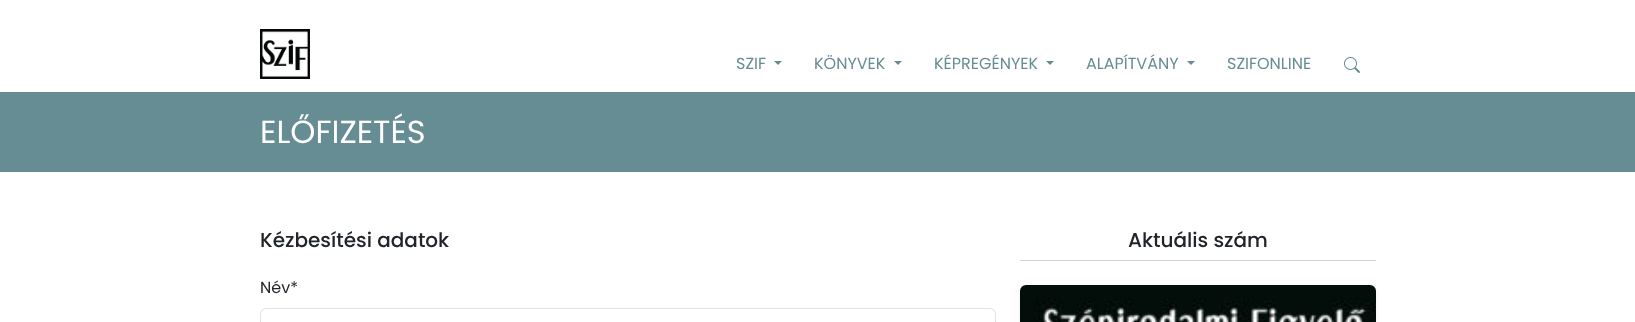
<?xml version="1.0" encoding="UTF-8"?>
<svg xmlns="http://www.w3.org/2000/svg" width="1635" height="322">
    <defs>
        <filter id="blur1" x="-50%" y="-200%" width="200%" height="500%"><feGaussianBlur stdDeviation="2"/></filter>
    </defs>
    <rect width="100%" height="100%" fill="#FFFFFF"/>
    <image x="260" y="29" width="50" height="50" href="img_01.png"/>
    <text x="736" y="69" font-family="Poppins" font-size="16" fill="#668C94">SZIF</text>
    <path d="M 774 61 H 782 L 778 65 Z" fill="#668C94"/>
    <text x="814" y="69" font-family="Poppins" font-size="16" fill="#668C94">KÖNYVEK</text>
    <path d="M 894 61 H 902 L 898 65 Z" fill="#668C94"/>
    <text x="934" y="69" font-family="Poppins" font-size="16" fill="#668C94">KÉPREGÉNYEK</text>
    <path d="M 1046 61 H 1054 L 1050 65 Z" fill="#668C94"/>
    <text x="1086" y="69" font-family="Poppins" font-size="16" fill="#668C94">ALAPÍTVÁNY</text>
    <path d="M 1187 61 H 1195 L 1191 65 Z" fill="#668C94"/>
    <text x="1227" y="69" font-family="Poppins" font-size="16" fill="#668C94">SZIFONLINE</text>
    <image x="1344" y="57" width="16" height="16" href="img_02.png"/>
    <rect x="0" y="92" width="1635" height="80" fill="#668C94"/>
    <text x="260" y="143" font-family="Poppins" font-size="32" fill="#FFFFFF">ELŐFIZETÉS</text>
    <text x="260" y="247" font-family="Poppins" font-size="20" font-weight="500" fill="#212529">Kézbesítési adatok</text>
    <text x="260" y="293" font-family="Poppins" font-size="16" fill="#212529">Név*</text>
    <rect x="260.5" y="308.5" width="735" height="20" rx="5.5" fill="none" stroke="#DEE2E6"/>
    <rect x="1020" y="260" width="356" height="1" fill="#D2D2D2"/>
    <text x="1128" y="247" font-family="Poppins" font-size="20" font-weight="500" fill="#212529">Aktuális szám</text>
    <rect x="1020" y="287" width="356" height="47" rx="6" fill="#000000" fill-opacity="0.07" filter="url(#blur1)"/>
    <image x="1020" y="285" width="356" height="37" href="img_03.png"/>
</svg>
